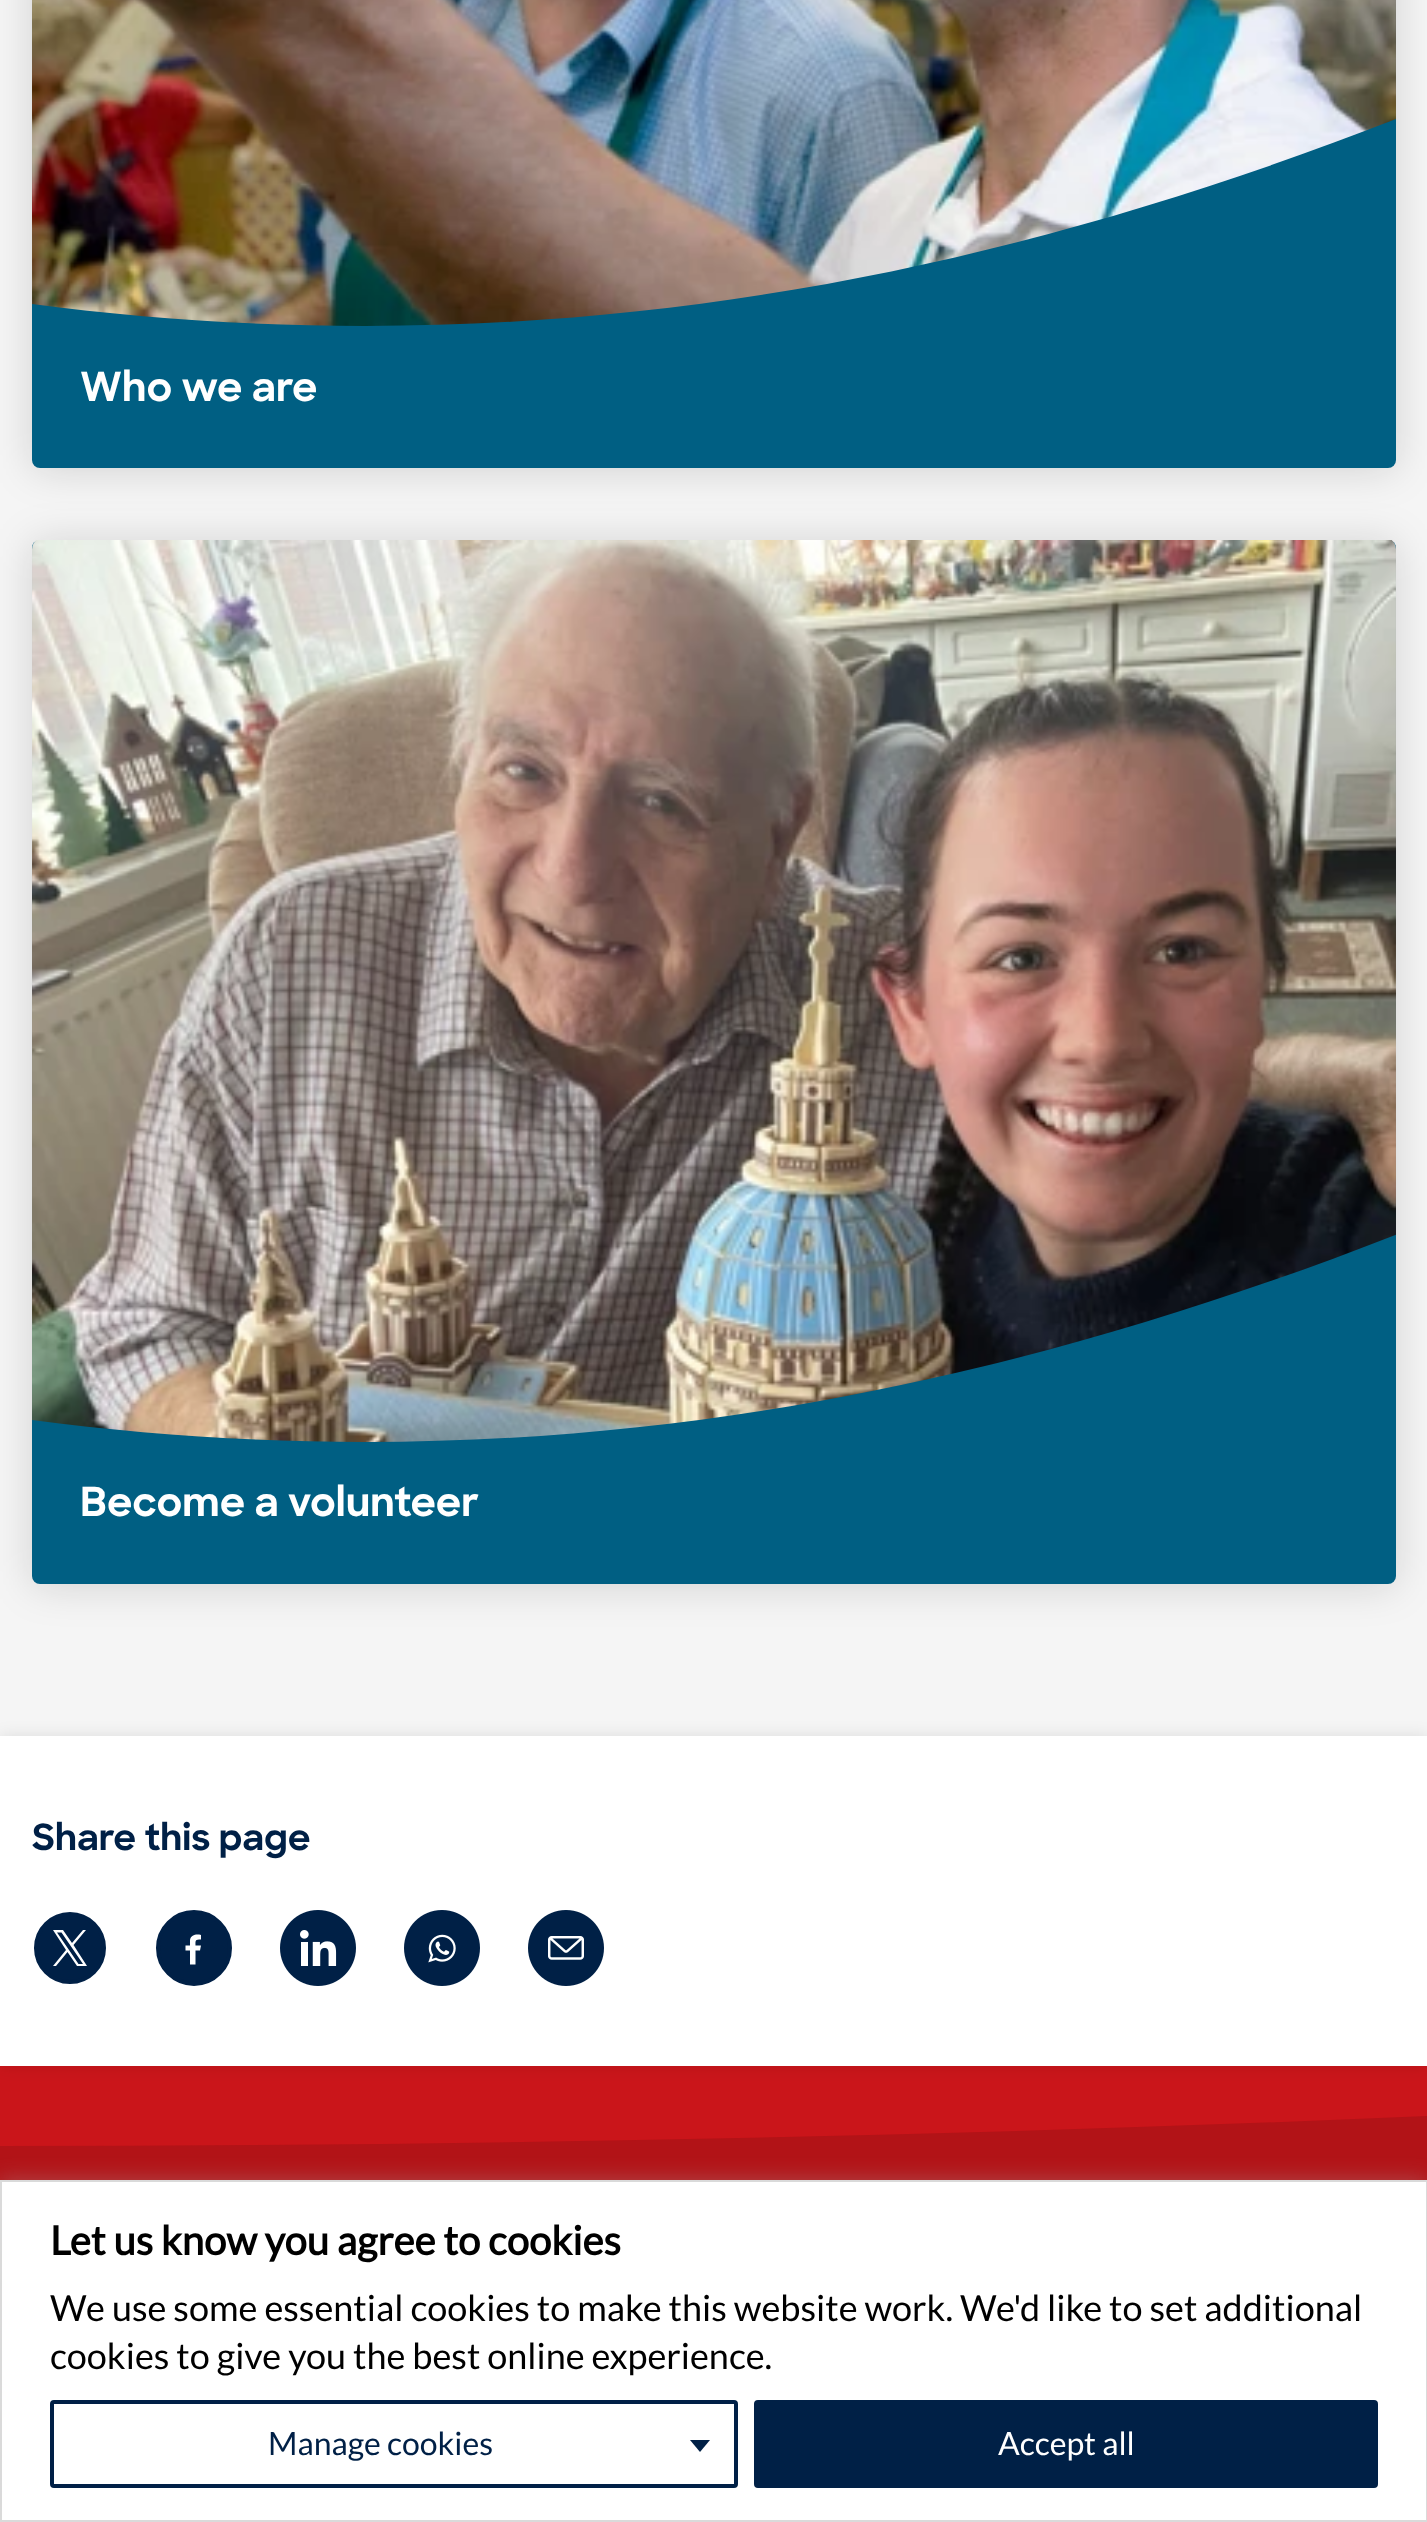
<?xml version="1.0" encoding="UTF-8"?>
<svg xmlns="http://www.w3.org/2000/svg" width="1427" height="2522">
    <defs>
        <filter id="blur1" x="-50%" y="-200%" width="200%" height="500%"><feGaussianBlur stdDeviation="20"/></filter>
        <filter id="blur2" x="-50%" y="-200%" width="200%" height="500%"><feGaussianBlur stdDeviation="8"/></filter>
        <filter id="blur3" x="-50%" y="-200%" width="200%" height="500%"><feGaussianBlur stdDeviation="10"/></filter>
    </defs>
    <rect width="100%" height="100%" fill="#F5F5F5"/>
    <rect x="32" y="-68" width="1364" height="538" rx="8" fill="#000000" fill-opacity="0.15" filter="url(#blur1)"/>
    <rect x="32" y="-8" width="1364" height="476" rx="8" fill="#005F83"/>
    <image x="32" y="0" width="1364" height="326" href="img_01.png"/>
    <text x="80" y="401" font-family="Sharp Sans" font-size="40" font-weight="700" fill="#FFFFFF">Who we are</text>
    <rect x="32" y="542" width="1364" height="1044" rx="8" fill="#000000" fill-opacity="0.15" filter="url(#blur1)"/>
    <rect x="32" y="540" width="1364" height="1044" rx="8" fill="#005F83"/>
    <image x="32" y="540" width="1364" height="902" href="img_02.png"/>
    <text x="80" y="1516" font-family="Sharp Sans" font-size="40" font-weight="700" fill="#FFFFFF">Become a volunteer</text>
    <rect x="0" y="2066" width="1427" height="80" fill="#CA151A"/>
    <rect x="0" y="1736" width="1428" height="330" fill="#000000" fill-opacity="0.1" filter="url(#blur2)"/>
    <rect x="0" y="1736" width="1427" height="330" fill="#FFFFFF"/>
    <text x="32" y="1850" font-family="Sharp Sans" font-size="36" font-weight="700" fill="#002046">Share this page</text>
    <circle cx="70" cy="1948" r="34" fill="#002046" stroke="#002046" stroke-width="4"/>
    <path d="M 73.5 1945 L 86 1930 H 83 L 72 1943 L 63 1930 H 53 L 66 1950 L 53 1966 H 56 L 67.5 1952 L 77 1966 H 87 Z M 69 1950 L 57 1932.5 H 61.5 L 83 1964 H 78.5 Z" fill="#FFFFFF"/>
    <circle cx="194" cy="1948" r="36" fill="#002046" stroke="#002046" stroke-width="4"/>
    <path d="M 201 1935 C 196.5 1934 191 1934.5 190 1940 V 1945.5 H 185.5 V 1950.5 H 190 V 1964.5 H 195.5 V 1950.5 H 200 L 201 1945.5 H 195.5 C 195.5 1940 195 1939.5 201 1939.5 Z" fill="#FFFFFF"/>
    <image x="280" y="1910" width="76" height="76" href="img_03.png"/>
    <image x="404" y="1910" width="76" height="76" href="img_04.png"/>
    <image x="528" y="1910" width="76" height="76" href="img_05.png"/>
    <rect x="0" y="2148" width="1427" height="32" fill="#B21317"/>
    <path d="M 0 2148 H 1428 V 2116 C 962 2136 486 2146 0 2146 Z" fill="#B21317" fill-rule="evenodd"/>
    <rect x="0" y="2178" width="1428" height="342" fill="#ACABAB" fill-opacity="0.3" filter="url(#blur3)"/>
    <rect x="1" y="2181" width="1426" height="340" fill="#FFFFFF" stroke="#DADADA" stroke-width="2"/>
    <text x="50" y="2255" font-family="Lato" font-size="40" font-weight="700" fill="#000000">Let us know you agree to cookies</text>
    <text font-family="Lato" font-size="36" fill="#000000">
        <tspan x="50" y="2321">We use some essential cookies to make this website work. We'd like to set additional</tspan>
        <tspan x="50" y="2369">cookies to give you the best online experience.</tspan>
    </text>
    <rect x="52" y="2402" width="684" height="84" rx="2" fill="none" stroke="#002046" stroke-width="4"/>
    <text x="268" y="2455" font-family="Lato" font-size="32" fill="#002046">Manage cookies</text>
    <path d="M 690 2440 H 710 L 700 2452 Z" fill="#002046"/>
    <rect x="756" y="2402" width="620" height="84" rx="2" fill="#002046" stroke="#002046" stroke-width="4"/>
    <text x="998" y="2455" font-family="Lato" font-size="32" fill="#FFFFFF">Accept all</text>
</svg>
